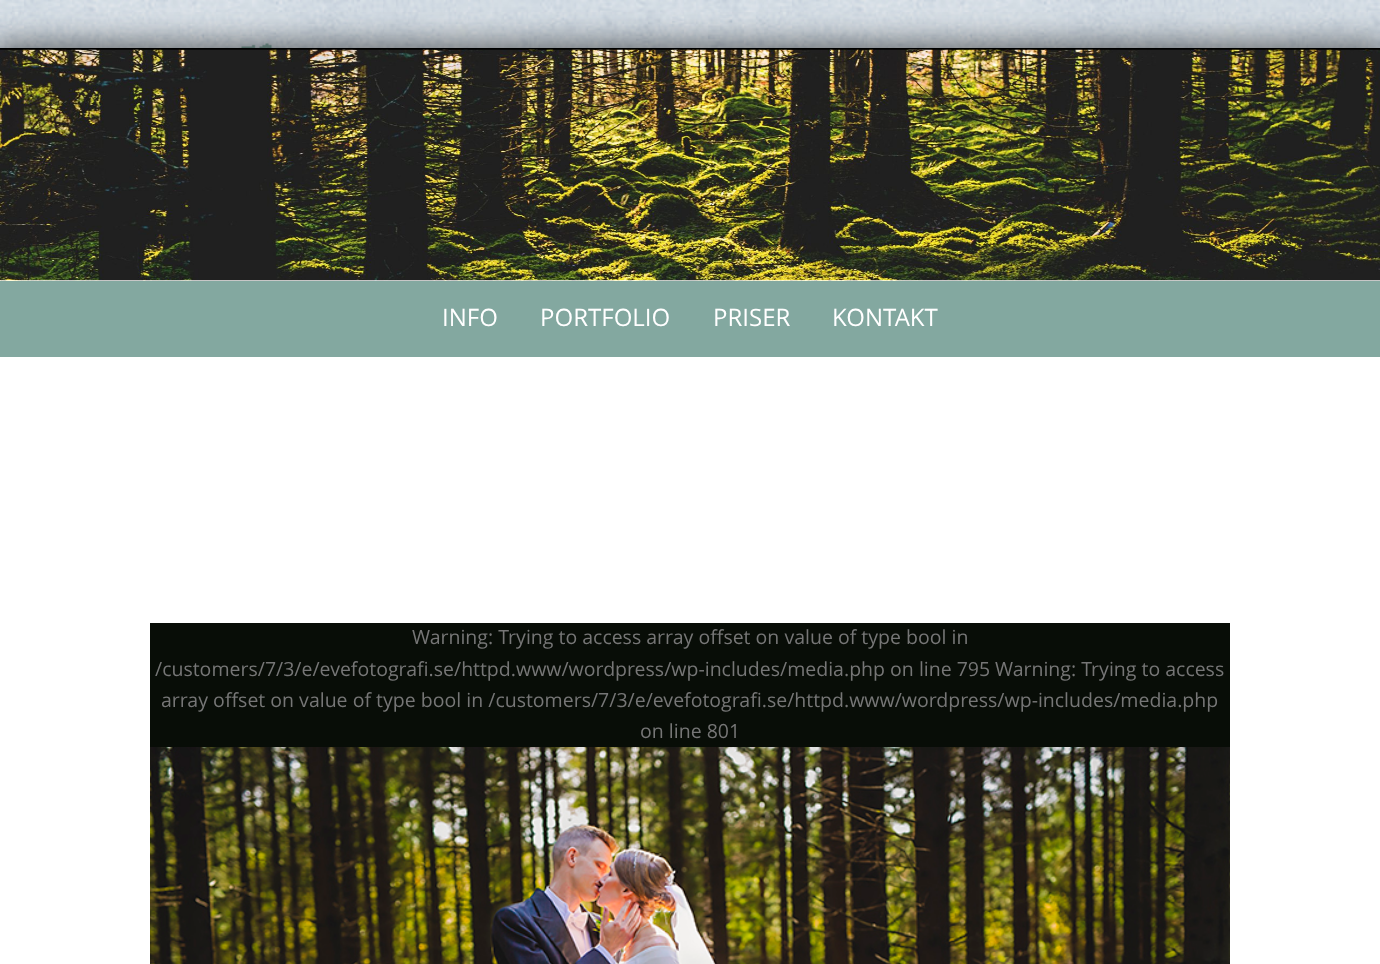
<?xml version="1.0" encoding="UTF-8"?>
<svg xmlns="http://www.w3.org/2000/svg" width="1380" height="964">
    <defs>
        <filter id="blur1" x="-50%" y="-200%" width="200%" height="500%"><feGaussianBlur stdDeviation="15"/></filter>
    </defs>
    <rect width="100%" height="100%" fill="#FFFFFF"/>
    <image x="0" y="0" width="1380" height="48" href="img_01.png"/>
    <rect x="-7" y="41" width="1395" height="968" fill="#000000" fill-opacity="0.5" filter="url(#blur1)"/>
    <rect x="0" y="48" width="1380" height="2" fill="#000000"/>
    <rect x="0" y="280" width="1380" height="1" fill="#FFFFFF"/>
    <image x="0" y="49" width="1380" height="232" href="img_02.png"/>
    <rect x="0" y="281" width="1380" height="76" fill="#83A8A0"/>
    <text x="442" y="326" font-family="Open Sans" font-size="24" fill="#FFFFFF">INFO</text>
    <text x="540" y="326" font-family="Open Sans" font-size="24" fill="#FFFFFF">PORTFOLIO</text>
    <text x="713" y="326" font-family="Open Sans" font-size="24" fill="#FFFFFF">PRISER</text>
    <text x="832" y="326" font-family="Open Sans" font-size="24" fill="#FFFFFF">KONTAKT</text>
    <rect x="0" y="357" width="1380" height="607" fill="#FFFFFF"/>
    <rect x="150" y="623" width="1080" height="124" fill="#080D07"/>
    <text x="412" y="644" font-family="Open Sans" font-size="19.5" fill="#767676">Warning: Trying to access array offset on value of type bool in</text>
    <text x="155" y="676" font-family="Open Sans" font-size="19.5" fill="#767676">/customers/7/3/e/evefotografi.se/httpd.www/wordpress/wp-includes/media.php on line 795</text>
    <text x="995" y="676" font-family="Open Sans" font-size="19.5" fill="#767676">Warning: Trying to access</text>
    <text x="161" y="707" font-family="Open Sans" font-size="19.5" fill="#767676">array offset on value of type bool in /customers/7/3/e/evefotografi.se/httpd.www/wordpress/wp-includes/media.php</text>
    <text x="640" y="738" font-family="Open Sans" font-size="19.5" fill="#767676">on line 801</text>
    <image x="150" y="747" width="1080" height="217" href="img_03.png"/>
</svg>
